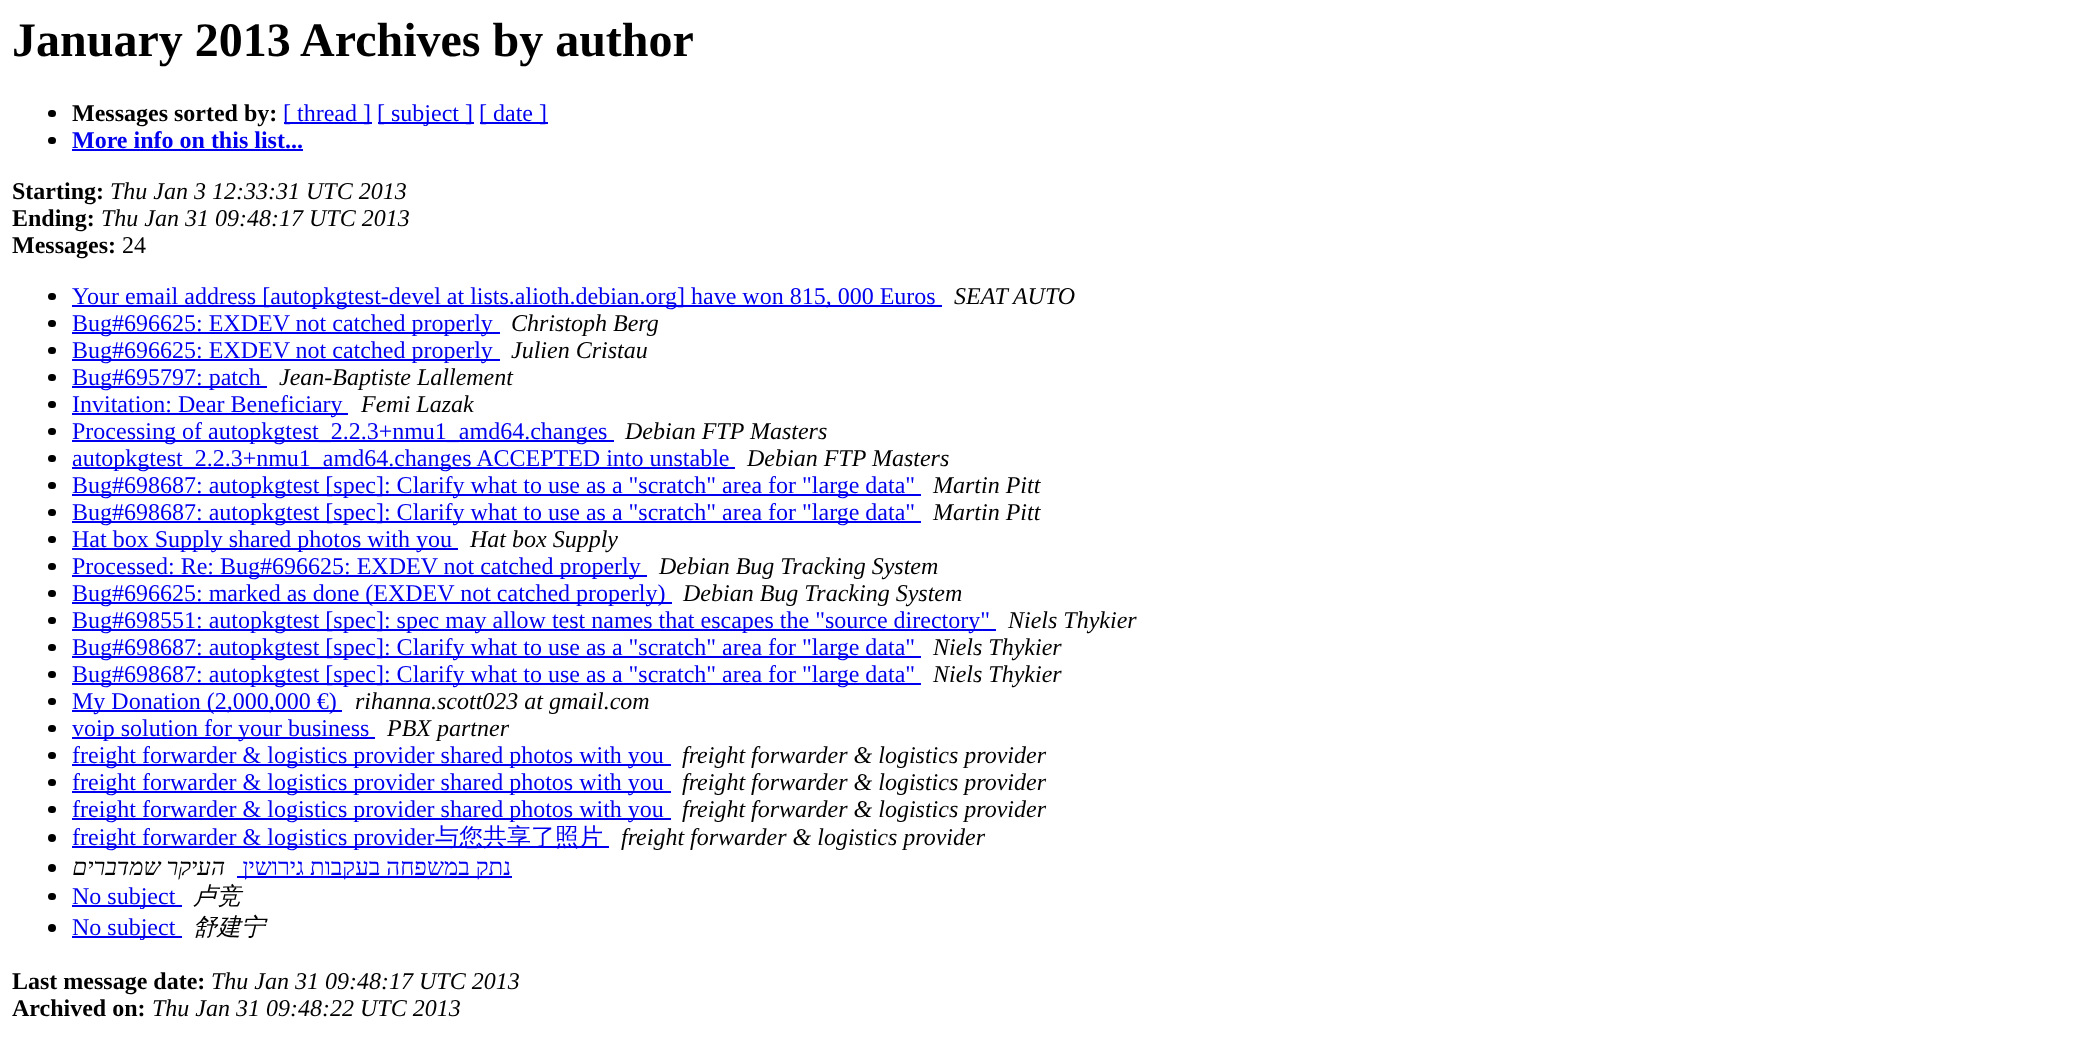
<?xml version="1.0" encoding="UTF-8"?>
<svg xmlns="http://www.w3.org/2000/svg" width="2081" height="1050">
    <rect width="100%" height="100%" fill="#FFFFFF"/>
    <text x="12" y="56" font-family="Liberation Serif" font-size="48" font-weight="700" fill="#000000">January 2013 Archives by author</text>
    <rect x="48" y="110" width="8" height="7" rx="3.5" fill="#000000"/>
    <text x="72" y="121" font-family="Liberation Serif" font-size="24" font-weight="700" fill="#000000">Messages sorted by:</text>
    <rect x="284" y="122" width="88" height="2" fill="#0000EE"/>
    <text x="283" y="121" font-family="Liberation Serif" font-size="24" fill="#0000EE">[ thread ]</text>
    <rect x="378" y="122" width="96" height="2" fill="#0000EE"/>
    <text x="377" y="121" font-family="Liberation Serif" font-size="24" fill="#0000EE">[ subject ]</text>
    <rect x="480" y="122" width="68" height="2" fill="#0000EE"/>
    <text x="479" y="121" font-family="Liberation Serif" font-size="24" fill="#0000EE">[ date ]</text>
    <rect x="48" y="137" width="8" height="7" rx="3.5" fill="#000000"/>
    <text x="72" y="148" font-family="Liberation Serif" font-size="24" font-weight="700" fill="#0000EE">More info on this list...</text>
    <rect x="72" y="149" width="231" height="2" fill="#0000EE"/>
    <text x="12" y="199" font-family="Liberation Serif" font-size="24" font-weight="700" fill="#000000">Starting:</text>
    <text x="110" y="199" font-family="Liberation Serif" font-size="24" font-style="italic" fill="#000000">Thu Jan 3 12:33:31 UTC 2013</text>
    <text x="12" y="226" font-family="Liberation Serif" font-size="24" font-weight="700" fill="#000000">Ending:</text>
    <text x="101" y="226" font-family="Liberation Serif" font-size="24" font-style="italic" fill="#000000">Thu Jan 31 09:48:17 UTC 2013</text>
    <text x="12" y="253" font-family="Liberation Serif" font-size="24" font-weight="700" fill="#000000">Messages:</text>
    <text x="122" y="253" font-family="Liberation Serif" font-size="24" fill="#000000">24</text>
    <rect x="48" y="293" width="8" height="7" rx="3.5" fill="#000000"/>
    <rect x="72" y="305" width="870" height="2" fill="#0000EE"/>
    <text x="72" y="304" font-family="Liberation Serif" font-size="24" fill="#0000EE">Your email address [autopkgtest-devel at lists.alioth.debian.org] have won 815, 000 Euros</text>
    <text x="954" y="304" font-family="Liberation Serif" font-size="24" font-style="italic" fill="#000000">SEAT AUTO</text>
    <rect x="48" y="320" width="8" height="7" rx="3.5" fill="#000000"/>
    <rect x="72" y="332" width="428" height="2" fill="#0000EE"/>
    <text x="72" y="331" font-family="Liberation Serif" font-size="24" fill="#0000EE">Bug#696625: EXDEV not catched properly</text>
    <text x="511" y="331" font-family="Liberation Serif" font-size="24" font-style="italic" fill="#000000">Christoph Berg</text>
    <rect x="48" y="347" width="8" height="7" rx="3.5" fill="#000000"/>
    <rect x="72" y="359" width="428" height="2" fill="#0000EE"/>
    <text x="72" y="358" font-family="Liberation Serif" font-size="24" fill="#0000EE">Bug#696625: EXDEV not catched properly</text>
    <text x="511" y="358" font-family="Liberation Serif" font-size="24" font-style="italic" fill="#000000">Julien Cristau</text>
    <rect x="48" y="374" width="8" height="7" rx="3.5" fill="#000000"/>
    <rect x="72" y="386" width="195" height="2" fill="#0000EE"/>
    <text x="72" y="385" font-family="Liberation Serif" font-size="24" fill="#0000EE">Bug#695797: patch</text>
    <text x="279" y="385" font-family="Liberation Serif" font-size="24" font-style="italic" fill="#000000">Jean-Baptiste Lallement</text>
    <rect x="48" y="401" width="8" height="7" rx="3.5" fill="#000000"/>
    <rect x="72" y="413" width="276" height="2" fill="#0000EE"/>
    <text x="72" y="412" font-family="Liberation Serif" font-size="24" fill="#0000EE">Invitation: Dear Beneficiary</text>
    <text x="361" y="412" font-family="Liberation Serif" font-size="24" font-style="italic" fill="#000000">Femi Lazak</text>
    <rect x="48" y="428" width="8" height="7" rx="3.5" fill="#000000"/>
    <rect x="72" y="440" width="542" height="2" fill="#0000EE"/>
    <text x="72" y="439" font-family="Liberation Serif" font-size="24" fill="#0000EE">Processing of autopkgtest_2.2.3+nmu1_amd64.changes</text>
    <text x="625" y="439" font-family="Liberation Serif" font-size="24" font-style="italic" fill="#000000">Debian FTP Masters</text>
    <rect x="48" y="455" width="8" height="7" rx="3.5" fill="#000000"/>
    <rect x="72" y="467" width="663" height="2" fill="#0000EE"/>
    <text x="72" y="466" font-family="Liberation Serif" font-size="24" fill="#0000EE">autopkgtest_2.2.3+nmu1_amd64.changes ACCEPTED into unstable</text>
    <text x="747" y="466" font-family="Liberation Serif" font-size="24" font-style="italic" fill="#000000">Debian FTP Masters</text>
    <rect x="48" y="482" width="8" height="7" rx="3.5" fill="#000000"/>
    <rect x="72" y="494" width="849" height="2" fill="#0000EE"/>
    <text x="72" y="493" font-family="Liberation Serif" font-size="24" fill="#0000EE">Bug#698687: autopkgtest [spec]: Clarify what to use as a "scratch" area for "large data"</text>
    <text x="933" y="493" font-family="Liberation Serif" font-size="24" font-style="italic" fill="#000000">Martin Pitt</text>
    <rect x="48" y="509" width="8" height="7" rx="3.5" fill="#000000"/>
    <rect x="72" y="521" width="849" height="2" fill="#0000EE"/>
    <text x="72" y="520" font-family="Liberation Serif" font-size="24" fill="#0000EE">Bug#698687: autopkgtest [spec]: Clarify what to use as a "scratch" area for "large data"</text>
    <text x="933" y="520" font-family="Liberation Serif" font-size="24" font-style="italic" fill="#000000">Martin Pitt</text>
    <rect x="48" y="536" width="8" height="7" rx="3.5" fill="#000000"/>
    <rect x="72" y="548" width="386" height="2" fill="#0000EE"/>
    <text x="72" y="547" font-family="Liberation Serif" font-size="24" fill="#0000EE">Hat box Supply shared photos with you</text>
    <text x="470" y="547" font-family="Liberation Serif" font-size="24" font-style="italic" fill="#000000">Hat box Supply</text>
    <rect x="48" y="563" width="8" height="7" rx="3.5" fill="#000000"/>
    <rect x="72" y="575" width="575" height="2" fill="#0000EE"/>
    <text x="72" y="574" font-family="Liberation Serif" font-size="24" fill="#0000EE">Processed: Re: Bug#696625: EXDEV not catched properly</text>
    <text x="659" y="574" font-family="Liberation Serif" font-size="24" font-style="italic" fill="#000000">Debian Bug Tracking System</text>
    <rect x="48" y="590" width="8" height="7" rx="3.5" fill="#000000"/>
    <rect x="72" y="602" width="600" height="2" fill="#0000EE"/>
    <text x="72" y="601" font-family="Liberation Serif" font-size="24" fill="#0000EE">Bug#696625: marked as done (EXDEV not catched properly)</text>
    <text x="683" y="601" font-family="Liberation Serif" font-size="24" font-style="italic" fill="#000000">Debian Bug Tracking System</text>
    <rect x="48" y="617" width="8" height="7" rx="3.5" fill="#000000"/>
    <rect x="72" y="629" width="924" height="2" fill="#0000EE"/>
    <text x="72" y="628" font-family="Liberation Serif" font-size="24" fill="#0000EE">Bug#698551: autopkgtest [spec]: spec may allow test names that escapes the "source directory"</text>
    <text x="1008" y="628" font-family="Liberation Serif" font-size="24" font-style="italic" fill="#000000">Niels Thykier</text>
    <rect x="48" y="644" width="8" height="7" rx="3.5" fill="#000000"/>
    <rect x="72" y="656" width="849" height="2" fill="#0000EE"/>
    <text x="72" y="655" font-family="Liberation Serif" font-size="24" fill="#0000EE">Bug#698687: autopkgtest [spec]: Clarify what to use as a "scratch" area for "large data"</text>
    <text x="933" y="655" font-family="Liberation Serif" font-size="24" font-style="italic" fill="#000000">Niels Thykier</text>
    <rect x="48" y="671" width="8" height="7" rx="3.5" fill="#000000"/>
    <rect x="72" y="683" width="849" height="2" fill="#0000EE"/>
    <text x="72" y="682" font-family="Liberation Serif" font-size="24" fill="#0000EE">Bug#698687: autopkgtest [spec]: Clarify what to use as a "scratch" area for "large data"</text>
    <text x="933" y="682" font-family="Liberation Serif" font-size="24" font-style="italic" fill="#000000">Niels Thykier</text>
    <rect x="48" y="698" width="8" height="7" rx="3.5" fill="#000000"/>
    <rect x="72" y="710" width="270" height="2" fill="#0000EE"/>
    <text x="72" y="709" font-family="Liberation Serif" font-size="24" fill="#0000EE">My Donation (2,000,000 €)</text>
    <text x="355" y="709" font-family="Liberation Serif" font-size="24" font-style="italic" fill="#000000">rihanna.scott023 at gmail.com</text>
    <rect x="48" y="725" width="8" height="7" rx="3.5" fill="#000000"/>
    <rect x="72" y="737" width="303" height="2" fill="#0000EE"/>
    <text x="72" y="736" font-family="Liberation Serif" font-size="24" fill="#0000EE">voip solution for your business</text>
    <text x="387" y="736" font-family="Liberation Serif" font-size="24" font-style="italic" fill="#000000">PBX partner</text>
    <rect x="48" y="752" width="8" height="7" rx="3.5" fill="#000000"/>
    <rect x="72" y="764" width="599" height="2" fill="#0000EE"/>
    <text x="72" y="763" font-family="Liberation Serif" font-size="24" fill="#0000EE">freight forwarder &amp; logistics provider shared photos with you</text>
    <text x="682" y="763" font-family="Liberation Serif" font-size="24" font-style="italic" fill="#000000">freight forwarder &amp; logistics provider</text>
    <rect x="48" y="779" width="8" height="7" rx="3.5" fill="#000000"/>
    <rect x="72" y="791" width="599" height="2" fill="#0000EE"/>
    <text x="72" y="790" font-family="Liberation Serif" font-size="24" fill="#0000EE">freight forwarder &amp; logistics provider shared photos with you</text>
    <text x="682" y="790" font-family="Liberation Serif" font-size="24" font-style="italic" fill="#000000">freight forwarder &amp; logistics provider</text>
    <rect x="48" y="806" width="8" height="7" rx="3.5" fill="#000000"/>
    <rect x="72" y="818" width="599" height="2" fill="#0000EE"/>
    <text x="72" y="817" font-family="Liberation Serif" font-size="24" fill="#0000EE">freight forwarder &amp; logistics provider shared photos with you</text>
    <text x="682" y="817" font-family="Liberation Serif" font-size="24" font-style="italic" fill="#000000">freight forwarder &amp; logistics provider</text>
    <circle cx="52" cy="838" r="4" fill="#000000"/>
    <rect x="72" y="846" width="537" height="2" fill="#0000EE"/>
    <text x="72" y="845" font-family="Liberation Serif" font-size="24" fill="#0000EE">freight forwarder &amp; logistics provider</text>
    <text x="435" y="845" font-family="WenQuanYi Zen Hei" font-size="24" font-weight="500" fill="#0000EE">与您共享了照片</text>
    <text x="621" y="845" font-family="Liberation Serif" font-size="24" font-style="italic" fill="#000000">freight forwarder &amp; logistics provider</text>
    <circle cx="52" cy="868" r="4" fill="#000000"/>
    <text x="225" y="875" font-family="Liberation Serif" font-size="24" font-style="italic" direction="rtl" fill="#000000">העיקר שמדברים</text>
    <rect x="237" y="876" width="275" height="2" fill="#0000EE"/>
    <text x="511" y="875" font-family="Liberation Serif" font-size="24" direction="rtl" fill="#0000EE">נתק במשפחה בעקבות גירושין</text>
    <rect x="48" y="893" width="8" height="7" rx="3.5" fill="#000000"/>
    <rect x="72" y="905" width="110" height="2" fill="#0000EE"/>
    <text x="72" y="904" font-family="Liberation Serif" font-size="24" fill="#0000EE">No subject</text>
    <text x="193" y="904" font-family="WenQuanYi Zen Hei" font-size="24" font-weight="500" font-style="italic" fill="#000000">卢竞</text>
    <circle cx="52" cy="928" r="4" fill="#000000"/>
    <rect x="72" y="936" width="110" height="2" fill="#0000EE"/>
    <text x="72" y="935" font-family="Liberation Serif" font-size="24" fill="#0000EE">No subject</text>
    <text x="193" y="935" font-family="WenQuanYi Zen Hei" font-size="24" font-weight="500" font-style="italic" fill="#000000">舒建宁</text>
    <text x="12" y="989" font-family="Liberation Serif" font-size="24" font-weight="700" fill="#000000">Last message date:</text>
    <text x="211" y="989" font-family="Liberation Serif" font-size="24" font-style="italic" fill="#000000">Thu Jan 31 09:48:17 UTC 2013</text>
    <text x="12" y="1016" font-family="Liberation Serif" font-size="24" font-weight="700" fill="#000000">Archived on:</text>
    <text x="152" y="1016" font-family="Liberation Serif" font-size="24" font-style="italic" fill="#000000">Thu Jan 31 09:48:22 UTC 2013</text>
</svg>
